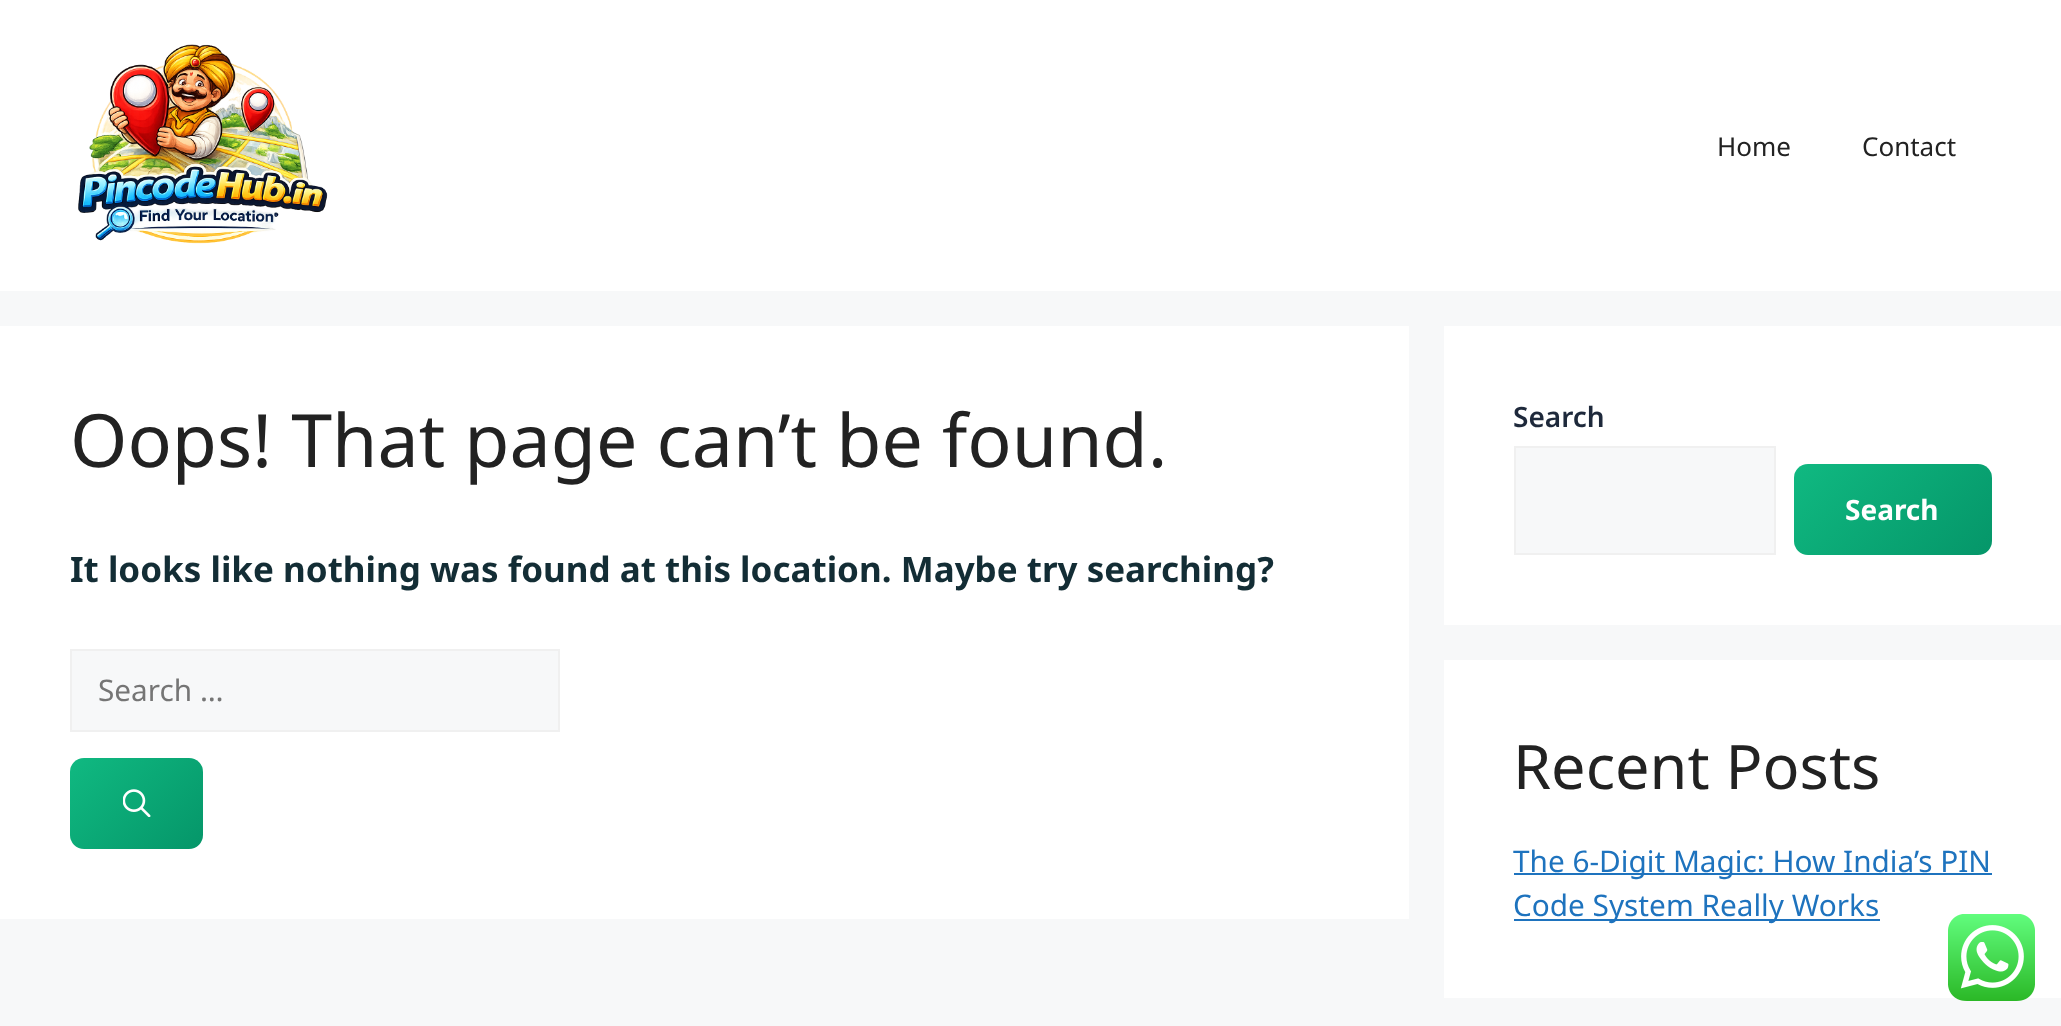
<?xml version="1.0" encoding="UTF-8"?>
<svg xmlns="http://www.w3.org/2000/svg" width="2061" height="1026">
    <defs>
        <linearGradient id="g1" gradientUnits="userSpaceOnUse" x1="81" y1="747" x2="193" y2="859"><stop offset="0" stop-color="#10B981"/><stop offset="1" stop-color="#059669"/></linearGradient>
        <linearGradient id="g2" gradientUnits="userSpaceOnUse" x1="1820" y1="437" x2="1965" y2="581"><stop offset="0" stop-color="#10B981"/><stop offset="1" stop-color="#059669"/></linearGradient>
    </defs>
    <rect width="100%" height="100%" fill="#F7F8F9"/>
    <rect x="0" y="0" width="2061" height="291" fill="#FFFFFF"/>
    <image x="78" y="44" width="250" height="200" href="img_01.png"/>
    <text x="1717" y="156" font-family="Noto Sans" font-size="26" fill="#222222">Home</text>
    <text x="1862" y="156" font-family="Noto Sans" font-size="26" fill="#222222">Contact</text>
    <rect x="0" y="326" width="1409" height="593" fill="#FFFFFF"/>
    <text x="70" y="467" font-family="Noto Sans" font-size="73.5" fill="#222222">Oops! That page can’t be found.</text>
    <text x="70" y="582" font-family="Noto Sans" font-size="35" font-weight="700" fill="#132D35">It looks like nothing was found at this location. Maybe try searching?</text>
    <rect x="71" y="650" width="488" height="81" fill="#F7F8F9" stroke="#F0F0F0" stroke-width="2"/>
    <text x="98" y="701" font-family="Noto Sans" font-size="29.75" fill="#757575">Search …</text>
    <rect x="70" y="758" width="133" height="91" rx="14" fill="url(#g1)"/>
    <image x="123" y="789" width="28" height="28" href="img_02.png"/>
    <rect x="1444" y="326" width="617" height="299" fill="#FFFFFF"/>
    <text x="1513" y="427" font-family="Noto Sans" font-size="28" font-weight="600" fill="#1E293B">Search</text>
    <rect x="1515" y="447" width="260" height="107" fill="#F7F8F9" stroke="#F0F0F0" stroke-width="2"/>
    <rect x="1794" y="464" width="198" height="91" rx="14" fill="url(#g2)"/>
    <text x="1845" y="520" font-family="Noto Sans" font-size="28" font-weight="700" fill="#FFFFFF">Search</text>
    <rect x="1444" y="660" width="617" height="338" fill="#FFFFFF"/>
    <text x="1513" y="789" font-family="Noto Sans" font-size="61.25" fill="#222222">Recent Posts</text>
    <rect x="1514" y="873" width="478" height="2" fill="#1E73BE"/>
    <text x="1513" y="872" font-family="Noto Sans" font-size="29.75" fill="#1E73BE">The 6-Digit Magic: How India’s PIN</text>
    <rect x="1514" y="919" width="366" height="2" fill="#1E73BE"/>
    <text x="1513" y="916" font-family="Noto Sans" font-size="29.75" fill="#1E73BE">Code System Really Works</text>
    <image x="1948" y="914" width="87" height="87" href="img_03.png"/>
</svg>
